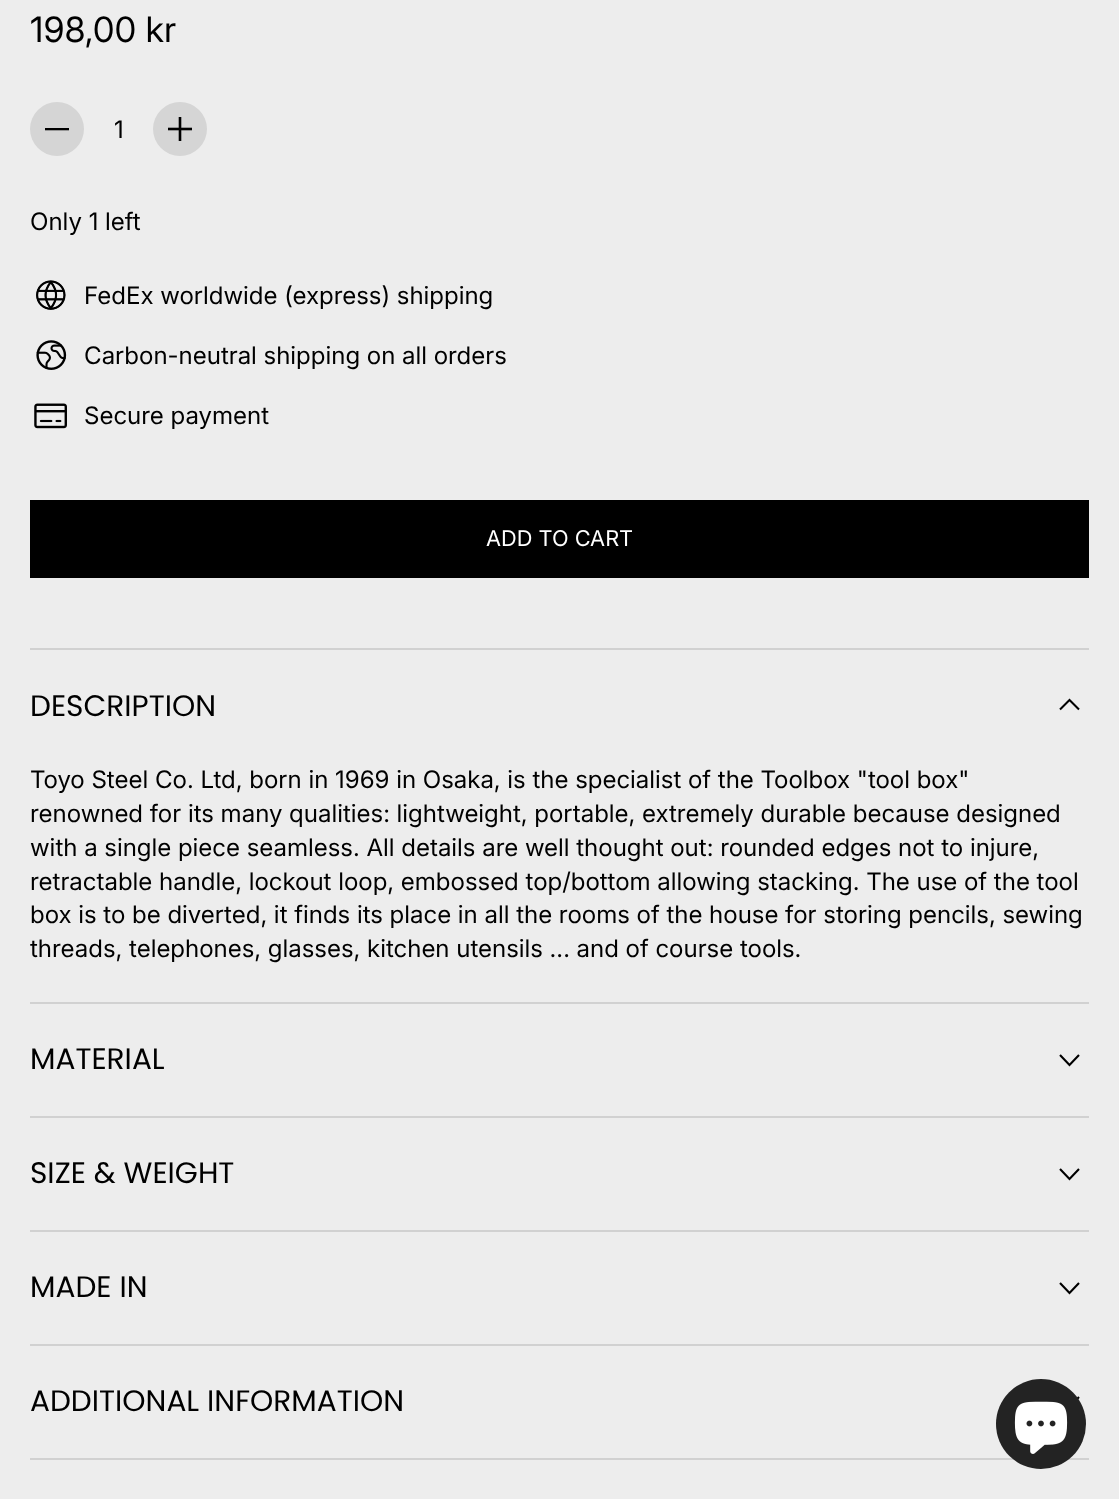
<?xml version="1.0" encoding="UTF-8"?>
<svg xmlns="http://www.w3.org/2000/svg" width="1119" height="1499">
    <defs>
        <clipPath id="clip1"><rect x="45" y="128" width="24" height="3"/></clipPath>
    </defs>
    <rect width="100%" height="100%" fill="#EDEDED"/>
    <text x="30" y="42" font-family="Inter" font-size="35" fill="#000000">198,00 kr</text>
    <circle cx="57" cy="129" r="27" fill="#D5D5D5"/>
    <g clip-path="url(#clip1)">
        <path d="M 45 129 H 69" fill="none" stroke="#000000" stroke-width="2.6"/>
    </g>
    <text x="114" y="138" font-family="'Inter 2'" font-size="24.2" fill="#000000">1</text>
    <circle cx="180" cy="129" r="27" fill="#D5D5D5"/>
    <image x="168" y="117" width="24" height="24" href="img_01.png"/>
    <text x="30" y="230" font-family="'Inter 2'" font-size="24.2" fill="#000000">Only 1 left</text>
    <image x="36" y="280" width="30" height="30" href="img_02.png"/>
    <text x="84" y="304" font-family="'Inter 2'" font-size="24.2" fill="#000000">FedEx worldwide (express) shipping</text>
    <image x="36" y="340" width="31" height="30" href="img_03.png"/>
    <text x="84" y="364" font-family="'Inter 2'" font-size="24.2" fill="#000000">Carbon-neutral shipping on all orders</text>
    <image x="34" y="403" width="33" height="26" href="img_04.png"/>
    <text x="84" y="424" font-family="'Inter 2'" font-size="24.2" fill="#000000">Secure payment</text>
    <rect x="30" y="500" width="1059" height="78" fill="#000000"/>
    <text x="486" y="546" font-family="'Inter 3'" font-size="21.75" fill="#FFFFFF">ADD TO CART</text>
    <rect x="30" y="648" width="1059" height="2" fill="#D1D1D1"/>
    <rect x="30" y="1002" width="1059" height="2" fill="#D1D1D1"/>
    <text x="30" y="716" font-family="Poppins" font-size="29.6" fill="#000000">DESCRIPTION</text>
    <path d="M 1060 709.5 L 1069.5 700 L 1079 709.5" fill="none" stroke="#000000" stroke-width="2.1"/>
    <text font-family="'Inter 2'" font-size="24.2" fill="#000000">
        <tspan x="30" y="788">Toyo Steel Co. Ltd, born in 1969 in Osaka, is the specialist of the Toolbox "tool box"</tspan>
        <tspan x="30" y="822">renowned for its many qualities: lightweight, portable, extremely durable because designed</tspan>
        <tspan x="30" y="856">with a single piece seamless. All details are well thought out: rounded edges not to injure,</tspan>
        <tspan x="30" y="890">retractable handle, lockout loop, embossed top/bottom allowing stacking. The use of the tool</tspan>
        <tspan x="30" y="923">box is to be diverted, it finds its place in all the rooms of the house for storing pencils, sewing</tspan>
        <tspan x="30" y="957">threads, telephones, glasses, kitchen utensils ... and of course tools.</tspan>
    </text>
    <rect x="30" y="1116" width="1059" height="2" fill="#D1D1D1"/>
    <text x="30" y="1069" font-family="Poppins" font-size="29.6" fill="#000000">MATERIAL</text>
    <path d="M 1060 1055 L 1069.5 1065 L 1079 1055" fill="none" stroke="#000000" stroke-width="2.1"/>
    <rect x="30" y="1230" width="1059" height="2" fill="#D1D1D1"/>
    <text x="30" y="1183" font-family="Poppins" font-size="29.6" fill="#000000">SIZE &amp; WEIGHT</text>
    <path d="M 1060 1169 L 1069.5 1179 L 1079 1169" fill="none" stroke="#000000" stroke-width="2.1"/>
    <rect x="30" y="1344" width="1059" height="2" fill="#D1D1D1"/>
    <text x="30" y="1297" font-family="Poppins" font-size="29.6" fill="#000000">MADE IN</text>
    <path d="M 1060 1283 L 1069.5 1293 L 1079 1283" fill="none" stroke="#000000" stroke-width="2.1"/>
    <rect x="30" y="1458" width="1059" height="2" fill="#D1D1D1"/>
    <text x="30" y="1411" font-family="Poppins" font-size="29.6" fill="#000000">ADDITIONAL INFORMATION</text>
    <path d="M 1060 1397 L 1069.5 1407 L 1079 1397" fill="none" stroke="#000000" stroke-width="2.1"/>
    <circle cx="1041" cy="1424" r="45" fill="#232323"/>
    <image x="1014" y="1401" width="54" height="53" href="img_05.png"/>
</svg>
